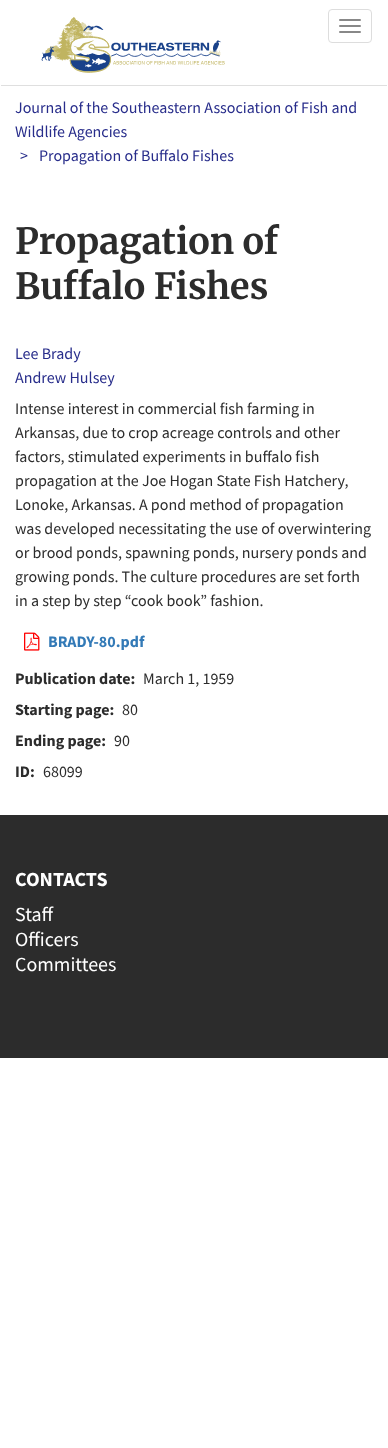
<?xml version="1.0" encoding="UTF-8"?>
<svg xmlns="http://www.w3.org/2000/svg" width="388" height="1448">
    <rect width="100%" height="100%" fill="#FFFFFF"/>
    <rect x="1" y="85" width="386" height="1" fill="#DFDFDF"/>
    <image x="41" y="17" width="184" height="56" href="img_01.png"/>
    <rect x="328.5" y="9.5" width="43" height="33" rx="3.5" fill="none" stroke="#DDDDDD"/>
    <rect x="339" y="19" width="22" height="2" rx="1" fill="#888888"/>
    <rect x="339" y="25" width="22" height="2" rx="1" fill="#888888"/>
    <rect x="339" y="31" width="22" height="2" rx="1" fill="#888888"/>
    <text font-family="Source Sans Pro" font-size="16" fill="#282D8B">
        <tspan x="15" y="113">Journal of the Southeastern Association of Fish and</tspan>
        <tspan x="15" y="137">Wildlife Agencies</tspan>
    </text>
    <text x="20" y="161" font-family="Source Sans Pro" font-size="16" fill="#282D8B">&gt;</text>
    <text x="39" y="161" font-family="Source Sans Pro" font-size="16" fill="#282D8B">Propagation of Buffalo Fishes</text>
    <text font-family="Merriweather" font-size="36" font-weight="700" fill="#2C2C2C">
        <tspan x="15" y="254">Propagation of</tspan>
        <tspan x="15" y="299">Buffalo Fishes</tspan>
    </text>
    <text font-family="Source Sans Pro" font-size="16" fill="#282D8B">
        <tspan x="15" y="359">Lee Brady</tspan>
        <tspan x="15" y="383">Andrew Hulsey</tspan>
    </text>
    <text font-family="Source Sans Pro" font-size="16" fill="#2C2C2C">
        <tspan x="15" y="414">Intense interest in commercial fish farming in</tspan>
        <tspan x="15" y="438">Arkansas, due to crop acreage controls and other</tspan>
        <tspan x="15" y="462">factors, stimulated experiments in buffalo fish</tspan>
        <tspan x="15" y="486">propagation at the Joe Hogan State Fish Hatchery,</tspan>
        <tspan x="15" y="510">Lonoke, Arkansas. A pond method of propagation</tspan>
        <tspan x="15" y="534">was developed necessitating the use of overwintering</tspan>
        <tspan x="15" y="558">or brood ponds, spawning ponds, nursery ponds and</tspan>
        <tspan x="15" y="582">growing ponds. The culture procedures are set forth</tspan>
        <tspan x="15" y="606">in a step by step “cook book” fashion.</tspan>
    </text>
    <image x="24" y="632" width="16" height="19" href="img_02.png"/>
    <text x="48" y="647" font-family="Source Sans Pro" font-size="16" font-weight="700" fill="#337AB7">BRADY-80.pdf</text>
    <text x="15" y="684" font-family="Source Sans Pro" font-size="16" font-weight="700" fill="#2C2C2C">Publication date:</text>
    <text x="143" y="684" font-family="Source Sans Pro" font-size="16" fill="#2C2C2C">March 1, 1959</text>
    <text x="15" y="715" font-family="Source Sans Pro" font-size="16" font-weight="700" fill="#2C2C2C">Starting page:</text>
    <text x="122" y="715" font-family="Source Sans Pro" font-size="16" fill="#2C2C2C">80</text>
    <text x="15" y="746" font-family="Source Sans Pro" font-size="16" font-weight="700" fill="#2C2C2C">Ending page:</text>
    <text x="114" y="746" font-family="Source Sans Pro" font-size="16" fill="#2C2C2C">90</text>
    <text x="15" y="777" font-family="Source Sans Pro" font-size="16" font-weight="700" fill="#2C2C2C">ID:</text>
    <text x="43" y="777" font-family="Source Sans Pro" font-size="16" fill="#2C2C2C">68099</text>
    <rect x="0" y="815" width="388" height="243" fill="#2C2C2C"/>
    <text x="15" y="886" font-family="Source Sans Pro" font-size="20" font-weight="700" fill="#FFFFFF">CONTACTS</text>
    <text font-family="Source Sans Pro" font-size="20" fill="#FFFFFF">
        <tspan x="15" y="921">Staff</tspan>
        <tspan x="15" y="946">Officers</tspan>
        <tspan x="15" y="971">Committees</tspan>
    </text>
</svg>
